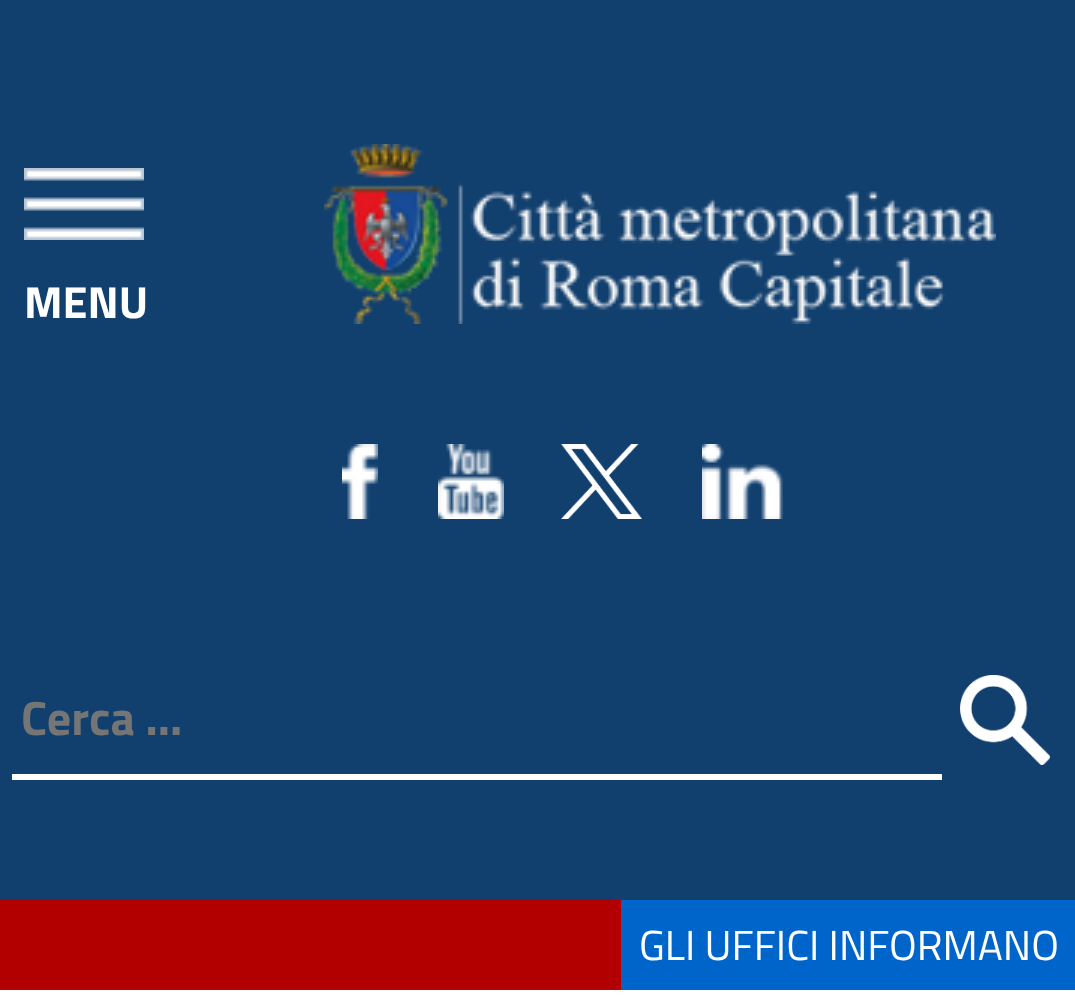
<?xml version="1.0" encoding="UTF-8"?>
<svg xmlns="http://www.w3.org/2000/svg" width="1075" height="997">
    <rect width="100%" height="100%" fill="#FFFFFF"/>
    <rect x="0" y="0" width="1075" height="900" fill="#113F6E"/>
    <image x="24" y="168" width="120" height="72" href="img_01.png"/>
    <text x="24" y="318" font-family="Titillium Web" font-size="45" font-weight="700" fill="#FFFFFF">MENU</text>
    <image x="324" y="144" width="672" height="180" href="img_02.png"/>
    <image x="342" y="444" width="36" height="75" href="img_03.png"/>
    <image x="438" y="444" width="66" height="75" href="img_04.png"/>
    <image x="561" y="444" width="81" height="75" href="img_05.png"/>
    <image x="702" y="444" width="81" height="75" href="img_06.png"/>
    <rect x="12" y="774" width="930" height="6" fill="#FFFFFF"/>
    <text x="21" y="735" font-family="Titillium Web" font-size="48" font-weight="700" fill="#757575">Cerca …</text>
    <image x="960" y="675" width="90" height="90" href="img_07.png"/>
    <rect x="0" y="900" width="621" height="90" fill="#B20000"/>
    <rect x="621" y="900" width="454" height="90" fill="#0065CB"/>
    <text x="639" y="960" font-family="Titillium Web" font-size="42" fill="#FFFFFF">GLI UFFICI INFORMANO</text>
</svg>
